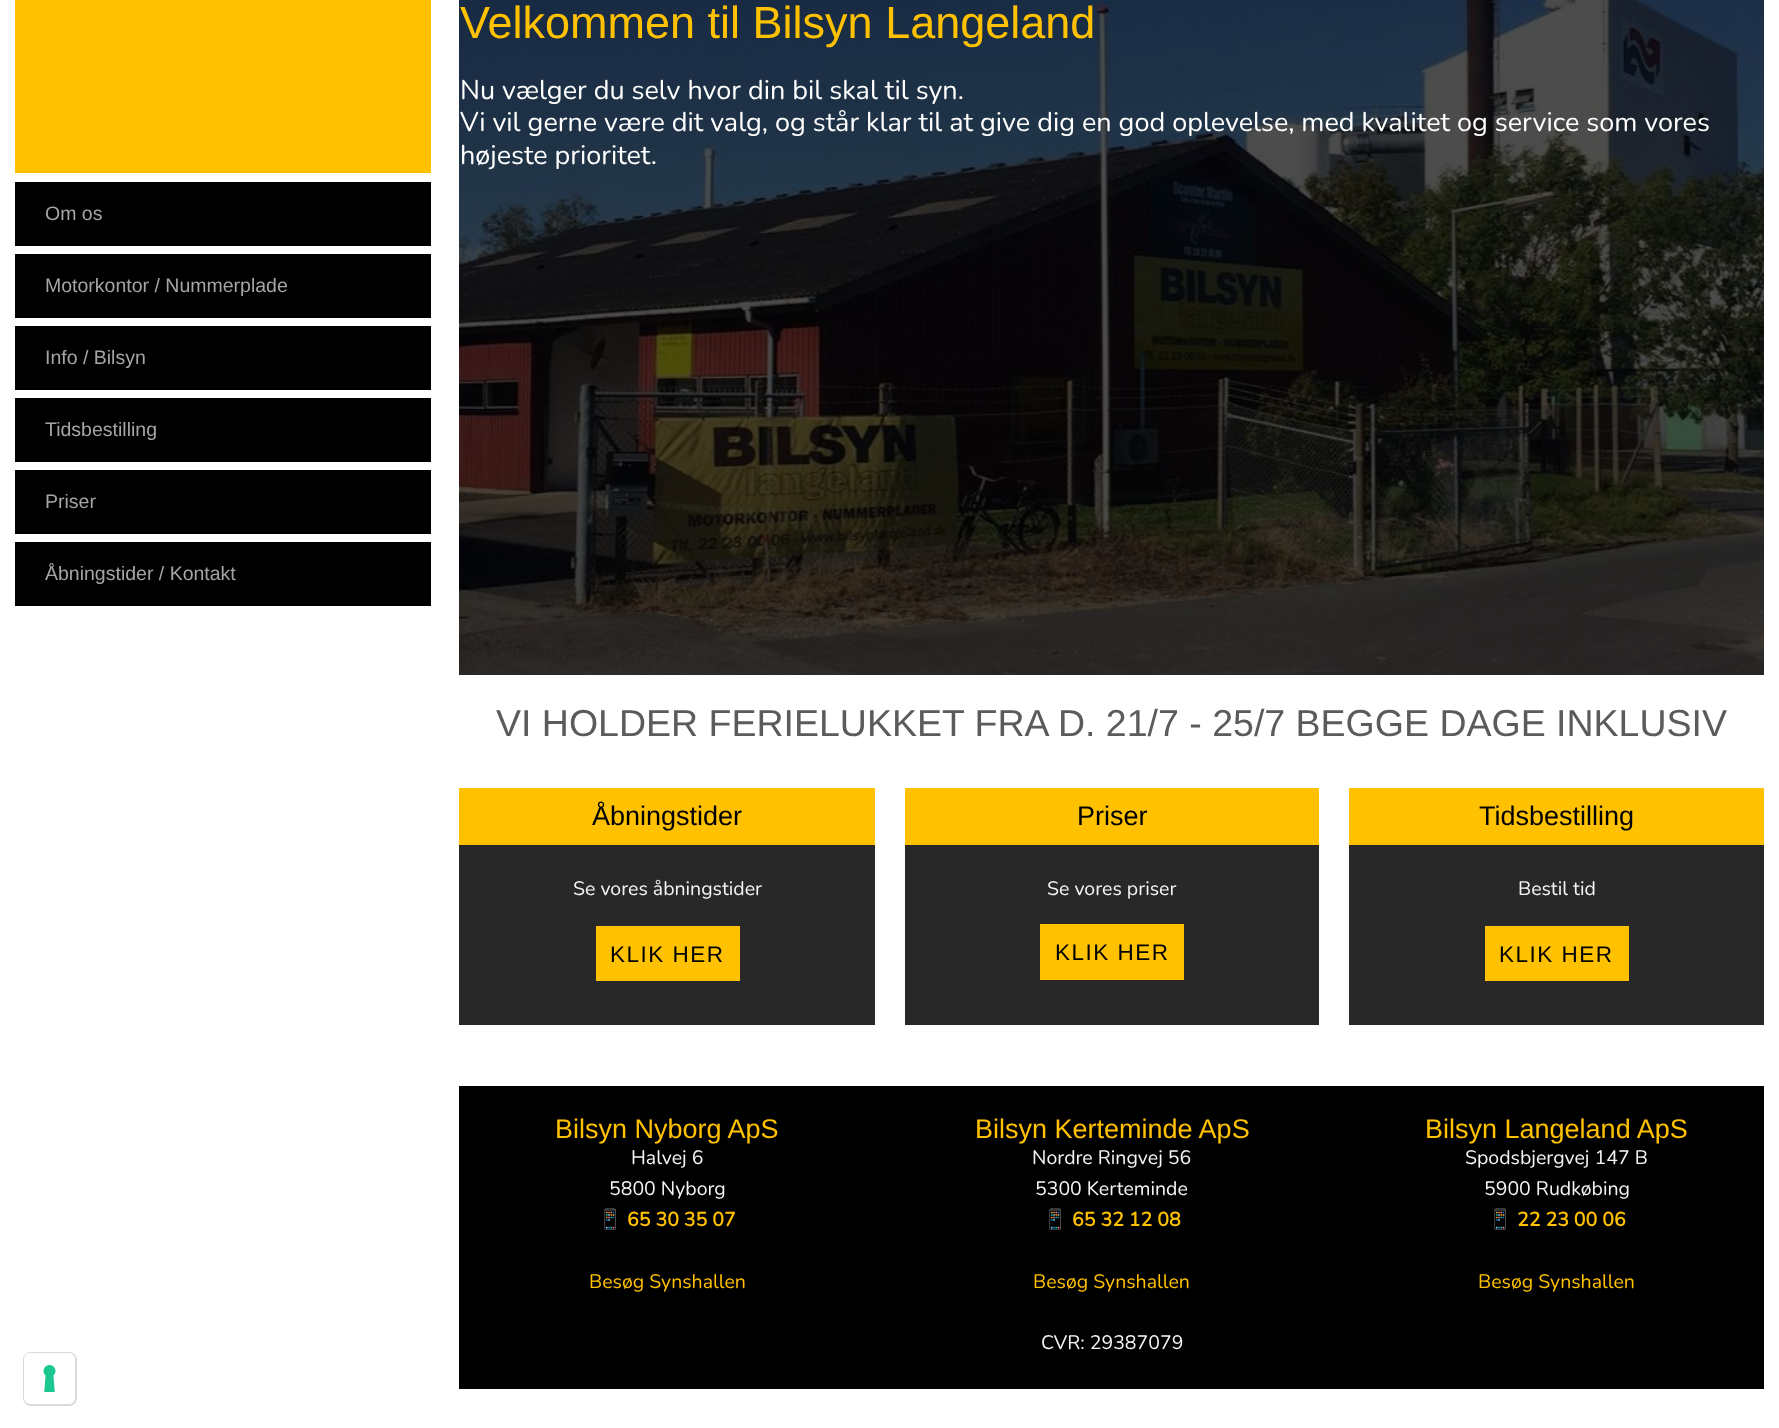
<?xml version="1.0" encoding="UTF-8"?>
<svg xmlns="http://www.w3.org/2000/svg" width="1779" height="1428">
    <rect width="100%" height="100%" fill="#FFFFFF"/>
    <rect x="15" y="0" width="416" height="173" fill="#FFC100"/>
    <rect x="15" y="182" width="416" height="64" fill="#000000"/>
    <text x="45" y="220" font-family="Liberation Sans" font-size="19.5" fill="#A5A5A5">Om os</text>
    <rect x="15" y="254" width="416" height="64" fill="#000000"/>
    <text x="45" y="292" font-family="Liberation Sans" font-size="19.5" fill="#A5A5A5">Motorkontor / Nummerplade</text>
    <rect x="15" y="326" width="416" height="64" fill="#000000"/>
    <text x="45" y="364" font-family="Liberation Sans" font-size="19.5" fill="#A5A5A5">Info / Bilsyn</text>
    <rect x="15" y="398" width="416" height="64" fill="#000000"/>
    <text x="45" y="436" font-family="Liberation Sans" font-size="19.5" fill="#A5A5A5">Tidsbestilling</text>
    <rect x="15" y="470" width="416" height="64" fill="#000000"/>
    <text x="45" y="508" font-family="Liberation Sans" font-size="19.5" fill="#A5A5A5">Priser</text>
    <rect x="15" y="542" width="416" height="64" fill="#000000"/>
    <text x="45" y="580" font-family="Liberation Sans" font-size="19.5" fill="#A5A5A5">Åbningstider / Kontakt</text>
    <image x="459" y="0" width="1305" height="675" href="img_01.png"/>
    <text x="460" y="38" font-family="Liberation Sans" font-size="45" fill="#FFC100">Velkommen til Bilsyn Langeland</text>
    <text font-family="Nunito" font-size="27" font-weight="200" fill="#FFFFFF">
        <tspan x="460" y="99">Nu vælger du selv hvor din bil skal til syn.</tspan>
        <tspan x="460" y="131">Vi vil gerne være dit valg, og står klar til at give dig en god oplevelse, med kvalitet og service som vores</tspan>
        <tspan x="460" y="164">højeste prioritet.</tspan>
    </text>
    <text x="496" y="736" font-family="Liberation Sans" font-size="37.5" fill="#5B5B5B">VI HOLDER FERIELUKKET FRA D. 21/7 - 25/7 BEGGE DAGE INKLUSIV</text>
    <rect x="459" y="788" width="416" height="57" fill="#FFC100"/>
    <text x="592" y="825" font-family="Liberation Sans" font-size="27" fill="#000000">Åbningstider</text>
    <rect x="459" y="845" width="416" height="180" fill="#282828"/>
    <text x="573" y="895" font-family="Nunito" font-size="19.5" font-weight="200" fill="#F5F5F5">Se vores åbningstider</text>
    <rect x="596" y="926" width="144" height="55" fill="#FFC100"/>
    <text x="610" y="962" font-family="Liberation Sans" font-size="22.5" letter-spacing="1.5" fill="#000000">KLIK HER</text>
    <rect x="905" y="788" width="414" height="57" fill="#FFC100"/>
    <text x="1077" y="825" font-family="Liberation Sans" font-size="27" fill="#000000">Priser</text>
    <rect x="905" y="845" width="414" height="180" fill="#282828"/>
    <text x="1047" y="895" font-family="Nunito" font-size="19.5" font-weight="200" fill="#F5F5F5">Se vores priser</text>
    <rect x="1040" y="924" width="144" height="56" fill="#FFC100"/>
    <text x="1055" y="960" font-family="Liberation Sans" font-size="22.5" letter-spacing="1.5" fill="#000000">KLIK HER</text>
    <rect x="1349" y="788" width="415" height="57" fill="#FFC100"/>
    <text x="1479" y="825" font-family="Liberation Sans" font-size="27" fill="#000000">Tidsbestilling</text>
    <rect x="1349" y="845" width="415" height="180" fill="#282828"/>
    <text x="1518" y="895" font-family="Nunito" font-size="19.5" font-weight="200" fill="#F5F5F5">Bestil tid</text>
    <rect x="1485" y="926" width="144" height="55" fill="#FFC100"/>
    <text x="1499" y="962" font-family="Liberation Sans" font-size="22.5" letter-spacing="1.5" fill="#000000">KLIK HER</text>
    <rect x="459" y="1086" width="1305" height="303" fill="#000000"/>
    <text x="555" y="1138" font-family="Liberation Sans" font-size="27" fill="#FFC100">Bilsyn Nyborg ApS</text>
    <text x="631" y="1164" font-family="Nunito" font-size="19.5" font-weight="200" fill="#F5F5F5">Halvej 6</text>
    <text x="609" y="1195" font-family="Nunito" font-size="19.5" font-weight="200" fill="#F5F5F5">5800 Nyborg</text>
    <text x="598" y="1226" font-family="Noto Color Emoji" font-size="19.5" font-weight="700" fill="#F5F5F5">📱</text>
    <text x="627" y="1226" font-family="Nunito" font-size="19.5" font-weight="700" fill="#FFC100">65 30 35 07</text>
    <text x="589" y="1288" font-family="Nunito" font-size="19.5" font-weight="200" fill="#FFC100">Besøg Synshallen</text>
    <text x="975" y="1138" font-family="Liberation Sans" font-size="27" fill="#FFC100">Bilsyn Kerteminde ApS</text>
    <text x="1032" y="1164" font-family="Nunito" font-size="19.5" font-weight="200" fill="#F5F5F5">Nordre Ringvej 56</text>
    <text x="1035" y="1195" font-family="Nunito" font-size="19.5" font-weight="200" fill="#F5F5F5">5300 Kerteminde</text>
    <text x="1043" y="1226" font-family="Noto Color Emoji" font-size="19.5" font-weight="700" fill="#F5F5F5">📱</text>
    <text x="1072" y="1226" font-family="Nunito" font-size="19.5" font-weight="700" fill="#FFC100">65 32 12 08</text>
    <text x="1033" y="1288" font-family="Nunito" font-size="19.5" font-weight="200" fill="#FFC100">Besøg Synshallen</text>
    <text x="1425" y="1138" font-family="Liberation Sans" font-size="27" fill="#FFC100">Bilsyn Langeland ApS</text>
    <text x="1465" y="1164" font-family="Nunito" font-size="19.5" font-weight="200" fill="#F5F5F5">Spodsbjergvej 147 B</text>
    <text x="1484" y="1195" font-family="Nunito" font-size="19.5" font-weight="200" fill="#F5F5F5">5900 Rudkøbing</text>
    <text x="1488" y="1226" font-family="Noto Color Emoji" font-size="19.5" font-weight="700" fill="#F5F5F5">📱</text>
    <text x="1517" y="1226" font-family="Nunito" font-size="19.5" font-weight="700" fill="#FFC100">22 23 00 06</text>
    <text x="1478" y="1288" font-family="Nunito" font-size="19.5" font-weight="200" fill="#FFC100">Besøg Synshallen</text>
    <text x="1041" y="1349" font-family="Nunito" font-size="19.5" font-weight="200" fill="#F5F5F5">CVR: 29387079</text>
    <rect x="24" y="1353" width="52" height="52" rx="7" fill="none" stroke="#D9D9D9" stroke-width="2"/>
    <rect x="24" y="1353" width="51" height="51" rx="6" fill="#FFFFFF"/>
    <image x="43" y="1365" width="13" height="27" href="img_02.png"/>
</svg>
